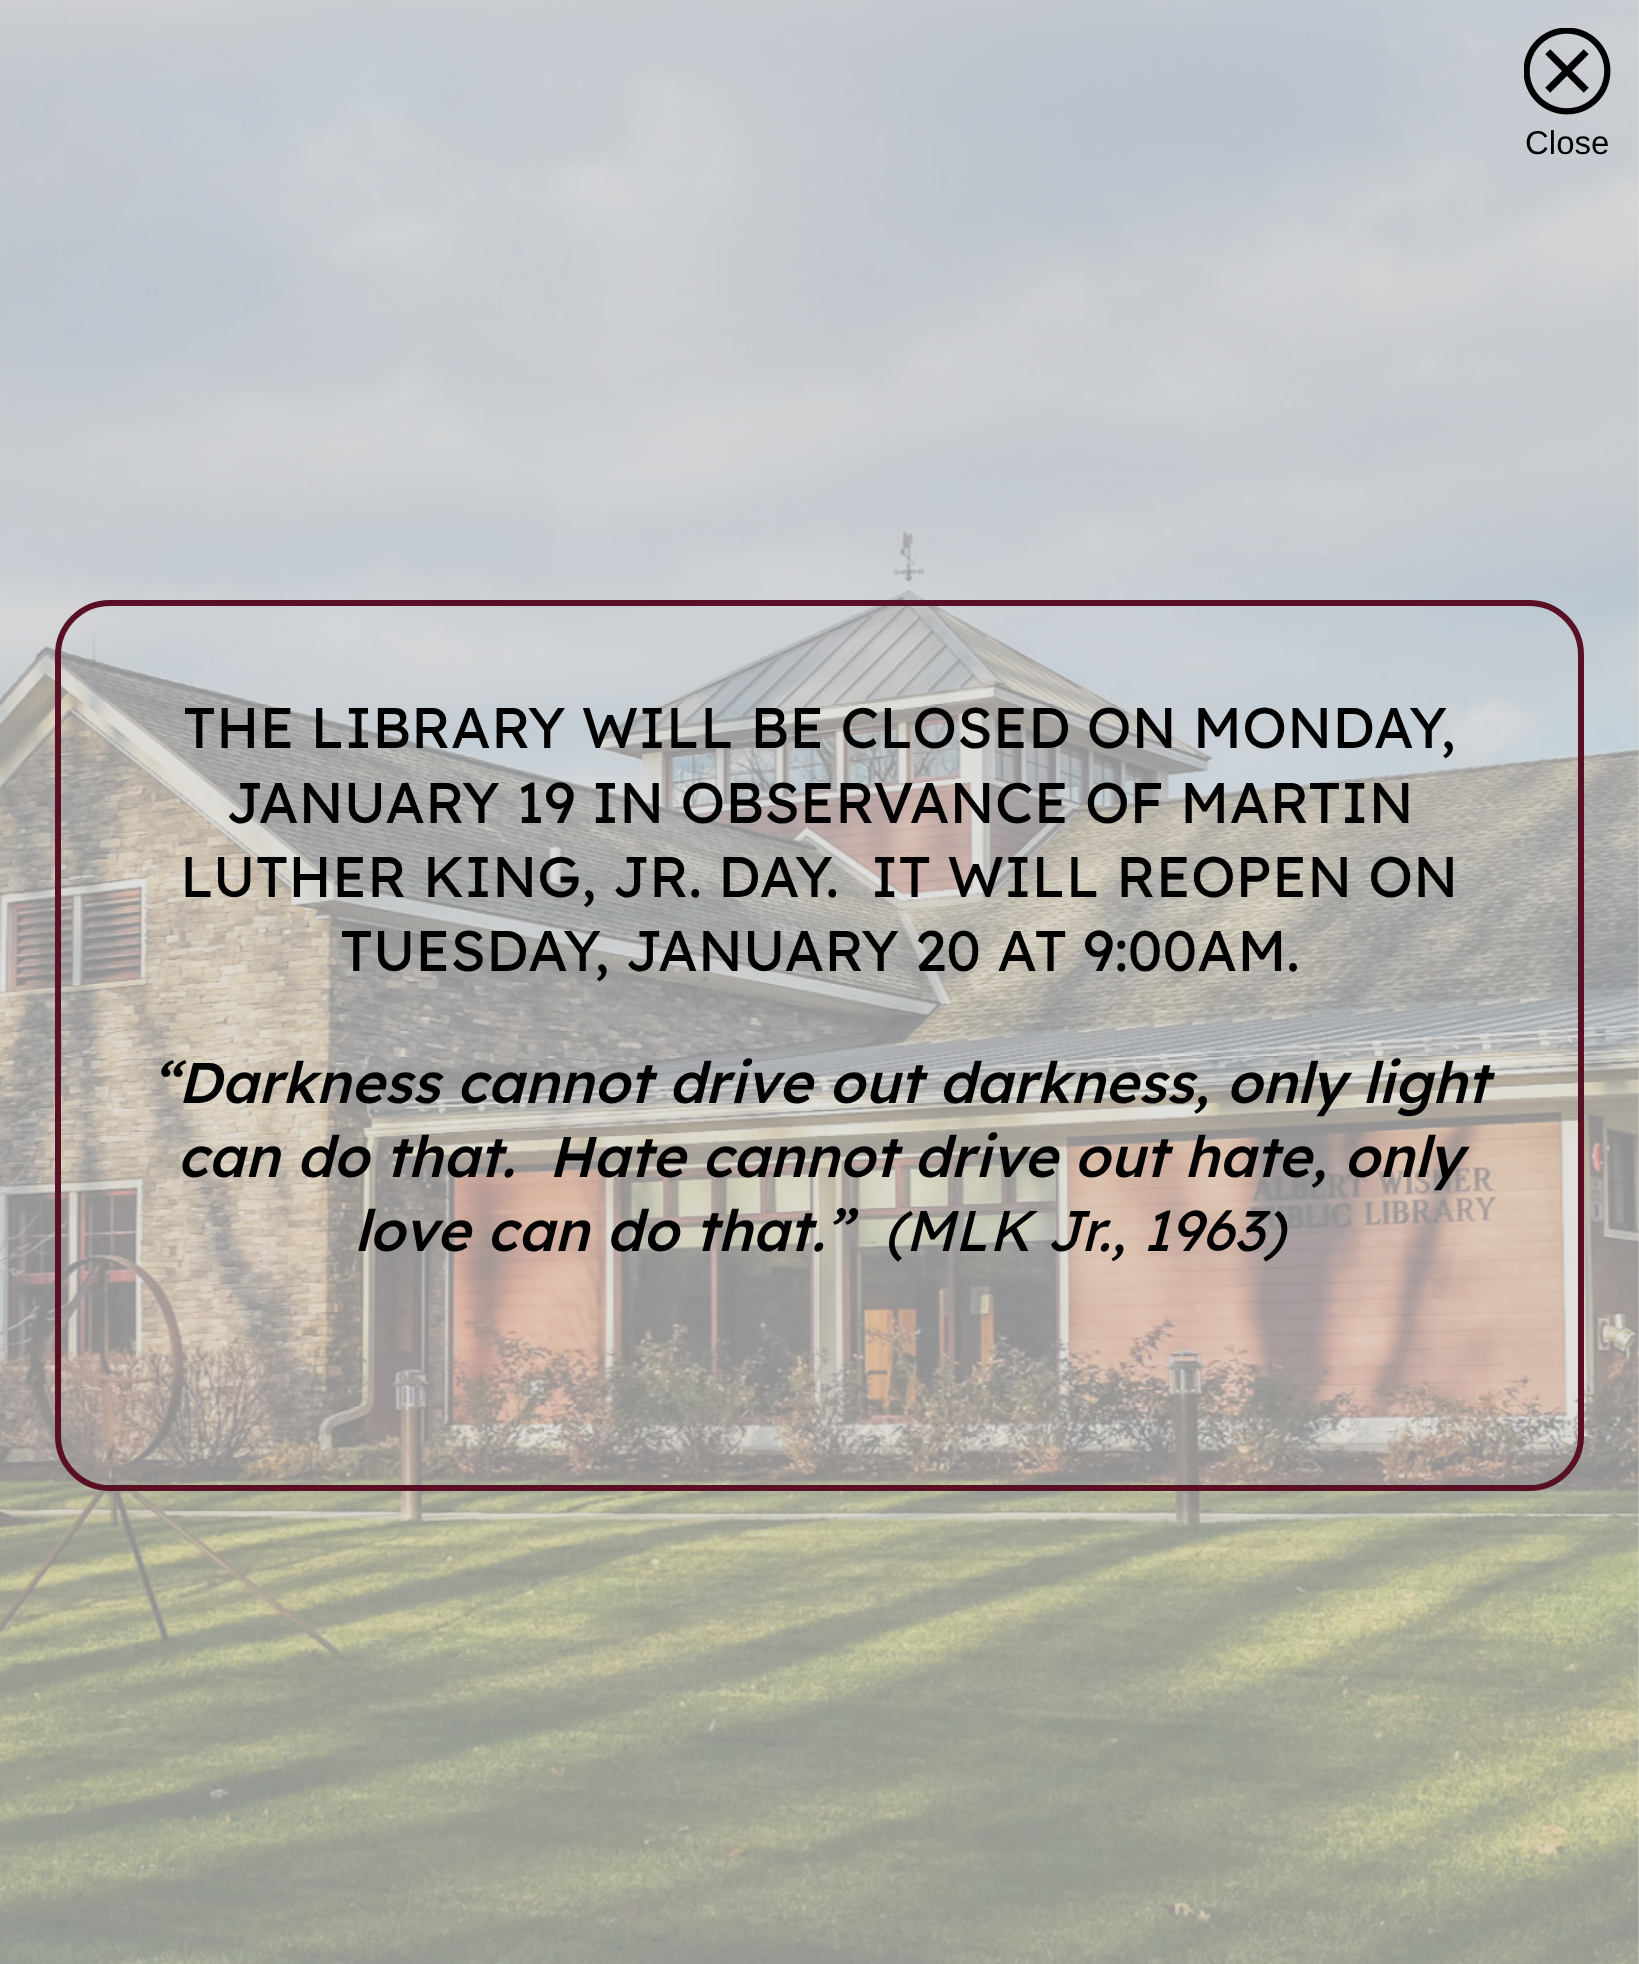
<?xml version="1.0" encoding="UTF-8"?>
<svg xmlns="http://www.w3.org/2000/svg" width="1639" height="1964">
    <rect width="100%" height="100%" fill="#E1E0DC"/>
    <image x="0" y="0" width="1639" height="1964" href="img_01.png"/>
    <image x="1524" y="28" width="87" height="87" href="img_02.png"/>
    <text x="1525" y="154" font-family="Liberation Sans" font-size="33" fill="#000000">Close</text>
    <rect x="58" y="603" width="1523" height="885" rx="52" fill="none" stroke="#590F24" stroke-width="6"/>
    <text x="183" y="748" font-family="Lexend" font-size="57.2" fill="#000000">THE LIBRARY WILL BE CLOSED ON MONDAY,</text>
    <text x="226" y="823" font-family="Lexend" font-size="57.2" fill="#000000">JANUARY 19 IN OBSERVANCE OF MARTIN</text>
    <text x="180" y="897" font-family="Lexend" font-size="57.2" fill="#000000" xml:space="preserve">LUTHER KING, JR. DAY.  IT WILL REOPEN ON</text>
    <text x="340" y="971" font-family="Lexend" font-size="57.2" fill="#000000">TUESDAY, JANUARY 20 AT 9:00AM.</text>
    <text x="151" y="1103" font-family="Lexend" font-size="57.2" font-weight="500" font-style="italic" fill="#000000">“Darkness cannot drive out darkness, only light</text>
    <text x="177" y="1177" font-family="Lexend" font-size="57.2" font-weight="500" font-style="italic" fill="#000000" xml:space="preserve">can do that.  Hate cannot drive out hate, only</text>
    <text x="354" y="1251" font-family="Lexend" font-size="57.2" font-weight="500" font-style="italic" fill="#000000">love can do that.”</text>
    <text x="884" y="1251" font-family="Lexend" font-size="57.2" font-style="italic" fill="#000000">(MLK Jr., 1963)</text>
</svg>
